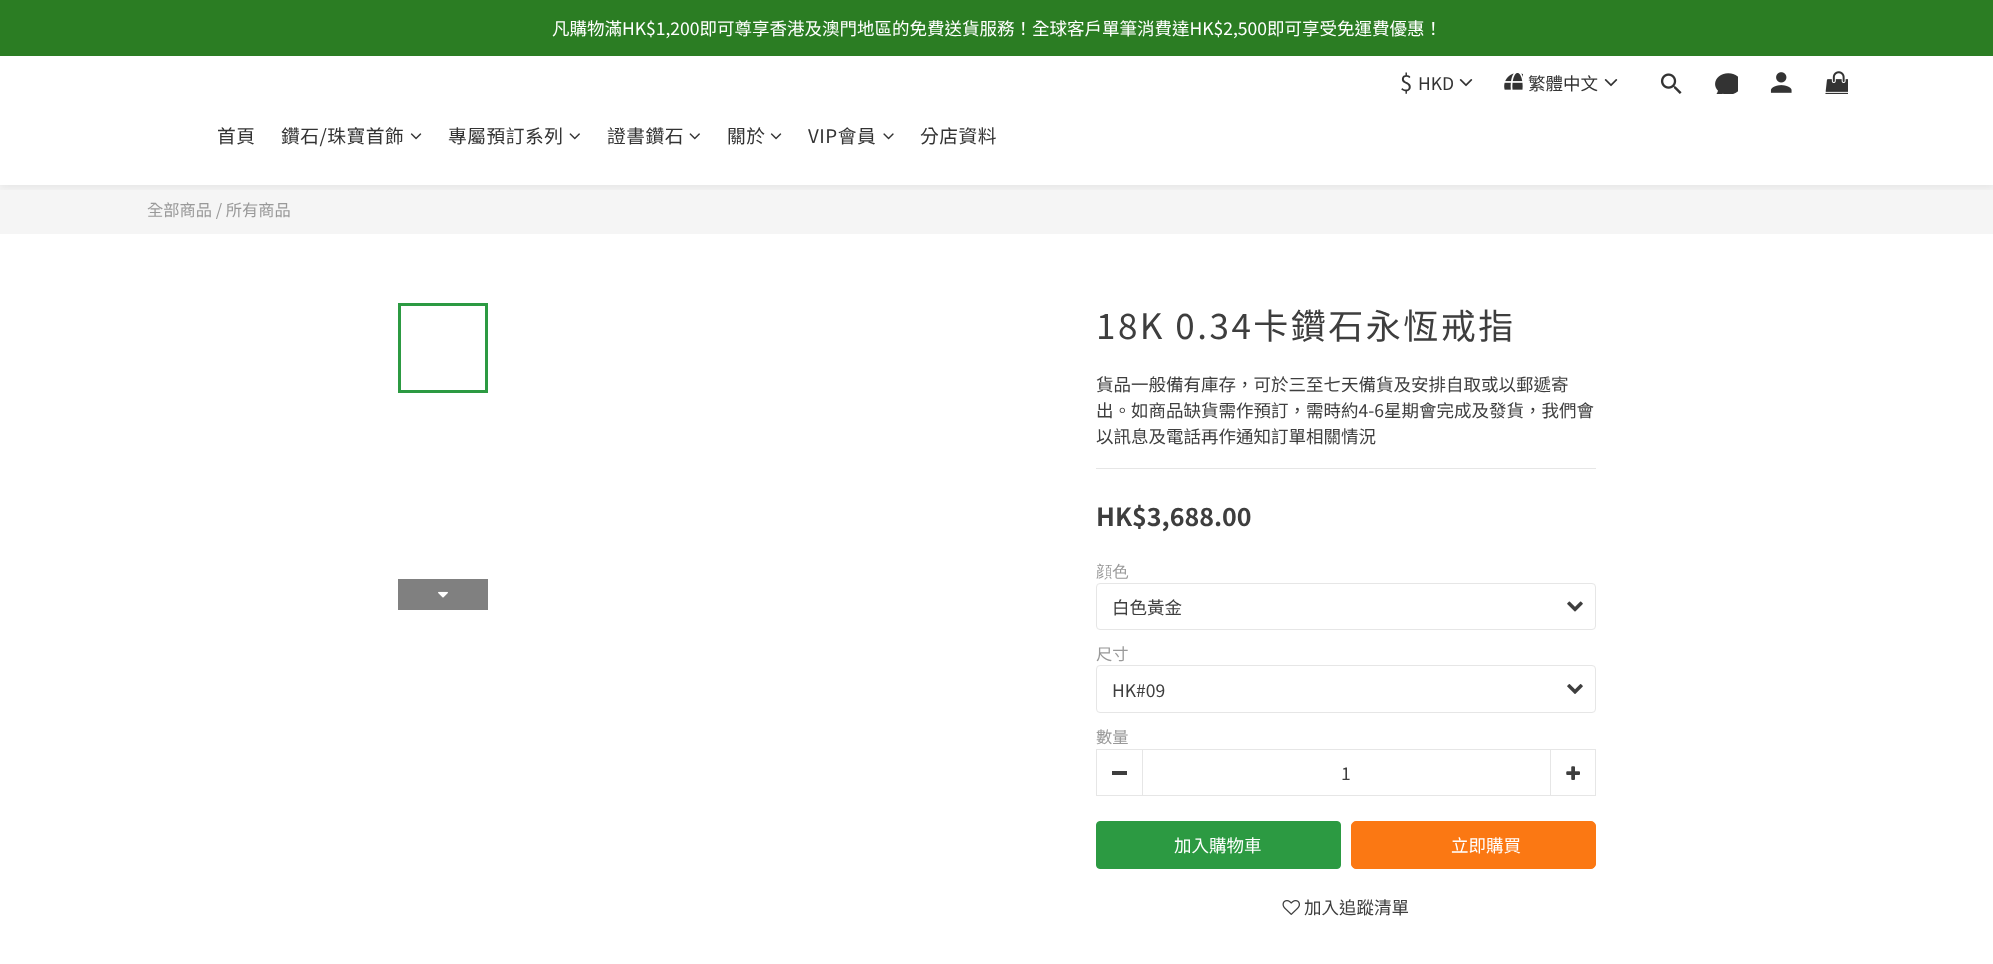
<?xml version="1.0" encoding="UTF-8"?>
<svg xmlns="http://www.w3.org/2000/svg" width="1993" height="964">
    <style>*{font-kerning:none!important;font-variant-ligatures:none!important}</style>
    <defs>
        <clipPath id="clip1"><rect x="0" y="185" width="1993" height="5"/></clipPath>
        <filter id="blur1" x="-50%" y="-200%" width="200%" height="500%"><feGaussianBlur stdDeviation="4"/></filter>
    </defs>
    <rect width="100%" height="100%" fill="#FFFFFF"/>
    <rect x="0" y="0" width="1993" height="56" fill="#2B7D23"/>
    <text x="552" y="35" font-family="Noto Sans TC" font-size="17.5" fill="#FFFFFF">凡購物滿HK$1,200即可尊享香港及澳門地區的免費送貨服務！全球客戶單筆消費達HK$2,500即可享受免運費優惠！</text>
    <rect x="0" y="185" width="1993" height="49" fill="#F5F5F5"/>
    <g clip-path="url(#clip1)">
        <rect x="0" y="59" width="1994" height="129" fill="#000000" fill-opacity="0.06" filter="url(#blur1)"/>
    </g>
    <text x="1400" y="91" font-family="Noto Sans TC" font-size="22" letter-spacing="1" fill="#333333">$</text>
    <text x="1418" y="90" font-family="Noto Sans TC" font-size="17.5" fill="#333333">HKD</text>
    <image x="1459" y="79" width="14" height="8" href="img_01.png"/>
    <image x="1504" y="73" width="19" height="17" href="img_02.png"/>
    <text x="1528" y="90" font-family="Noto Sans TC" font-size="17.5" fill="#333333">繁體中文</text>
    <image x="1604" y="79" width="14" height="8" href="img_01.png"/>
    <image x="1660" y="73" width="22" height="21" href="img_03.png"/>
    <image x="1715" y="73" width="23" height="21" href="img_04.png"/>
    <image x="1770" y="72" width="22" height="21" href="img_05.png"/>
    <image x="1825" y="71" width="23" height="23" href="img_06.png"/>
    <text x="217" y="143" font-family="Noto Sans TC" font-size="18.75" letter-spacing="0.5" fill="#333333">首頁</text>
    <text x="281" y="143" font-family="Noto Sans TC" font-size="18.75" letter-spacing="0.5" fill="#333333">鑽石/珠寶首飾</text>
    <image x="410" y="133" width="12" height="7" href="img_07.png"/>
    <text x="448" y="143" font-family="Noto Sans TC" font-size="18.75" letter-spacing="0.5" fill="#333333">專屬預訂系列</text>
    <image x="569" y="133" width="11" height="7" href="img_08.png"/>
    <text x="607" y="143" font-family="Noto Sans TC" font-size="18.75" letter-spacing="0.5" fill="#333333">證書鑽石</text>
    <image x="689" y="133" width="11" height="7" href="img_08.png"/>
    <text x="727" y="143" font-family="Noto Sans TC" font-size="18.75" letter-spacing="0.5" fill="#333333">關於</text>
    <image x="770" y="133" width="12" height="7" href="img_07.png"/>
    <text x="808" y="143" font-family="Noto Sans TC" font-size="18.75" letter-spacing="0.5" fill="#333333">VIP會員</text>
    <image x="883" y="133" width="11" height="7" href="img_09.png"/>
    <text x="920" y="143" font-family="Noto Sans TC" font-size="18.75" letter-spacing="0.5" fill="#333333">分店資料</text>
    <text x="147" y="216" font-family="Noto Sans TC" font-size="16.25" fill="#999999">全部商品 / 所有商品</text>
    <rect x="399.5" y="304.5" width="87" height="87" fill="none" stroke="#2C9A42" stroke-width="3"/>
    <rect x="398" y="579" width="90" height="31" fill="#808080"/>
    <image x="438" y="591" width="10" height="7" href="img_10.png"/>
    <text x="1096" y="339" font-family="Noto Sans TC" font-size="35" letter-spacing="2.5" fill="#3E3E3E">18K 0.34卡鑽石永恆戒指</text>
    <text font-family="Noto Sans TC" font-size="17.5" fill="#3E3E3E">
        <tspan x="1096" y="391">貨品一般備有庫存，可於三至七天備貨及安排自取或以郵遞寄</tspan>
        <tspan x="1096" y="417">出。如商品缺貨需作預訂，需時約4-6星期會完成及發貨，我們會</tspan>
        <tspan x="1096" y="443">以訊息及電話再作通知訂單相關情況</tspan>
    </text>
    <rect x="1096" y="468" width="500" height="1" fill="#E6E6E6"/>
    <text x="1096" y="526" font-family="Noto Sans TC" font-size="25" font-weight="700" fill="#3E3E3E">HK$3,688.00</text>
    <text x="1096" y="577" font-family="WenQuanYi Zen Hei" font-size="16.25" font-weight="500" fill="#999999">顔色</text>
    <image x="1567" y="601" width="16" height="11" href="img_11.png"/>
    <rect x="1096.5" y="583.5" width="499" height="46" rx="3.5" fill="none" stroke="#E6E6E6"/>
    <text x="1112" y="614" font-family="Noto Sans TC" font-size="17.5" fill="#3E3E3E">白色黃金</text>
    <text x="1096" y="660" font-family="Noto Sans TC" font-size="16.25" fill="#999999">尺寸</text>
    <image x="1567" y="684" width="16" height="10" href="img_12.png"/>
    <rect x="1096.5" y="665.5" width="499" height="47" rx="3.5" fill="none" stroke="#E6E6E6"/>
    <text x="1112" y="697" font-family="Noto Sans TC" font-size="17.5" fill="#3E3E3E">HK#09</text>
    <text x="1096" y="743" font-family="Noto Sans TC" font-size="16.25" fill="#999999">數量</text>
    <rect x="1141" y="749" width="410" height="1" fill="#E6E6E6"/>
    <rect x="1141" y="795" width="410" height="1" fill="#E6E6E6"/>
    <rect x="1096.5" y="749.5" width="46" height="46" fill="none" stroke="#E6E6E6"/>
    <rect x="1112" y="771" width="15" height="4" fill="#3E3E3E"/>
    <text x="1341" y="780" font-family="Noto Sans TC" font-size="17.5" fill="#3E3E3E">1</text>
    <rect x="1550.5" y="749.5" width="45" height="46" fill="none" stroke="#E6E6E6"/>
    <image x="1566" y="766" width="14" height="14" href="img_13.png"/>
    <rect x="1096.5" y="821.5" width="244" height="47" rx="3.5" fill="#2C9A42" stroke="#2C9A42"/>
    <text x="1174" y="852" font-family="Noto Sans TC" font-size="17.5" fill="#FFFFFF">加入購物車</text>
    <rect x="1351.5" y="821.5" width="244" height="47" rx="4.5" fill="#FB7813" stroke="#FB7813"/>
    <text x="1451" y="852" font-family="Noto Sans TC" font-size="17.5" fill="#FFFFFF">立即購買</text>
    <image x="1282" y="900" width="18" height="15" href="img_14.png"/>
    <text x="1304" y="914" font-family="Noto Sans TC" font-size="17.5" fill="#3E3E3E">加入追蹤清單</text>
</svg>
